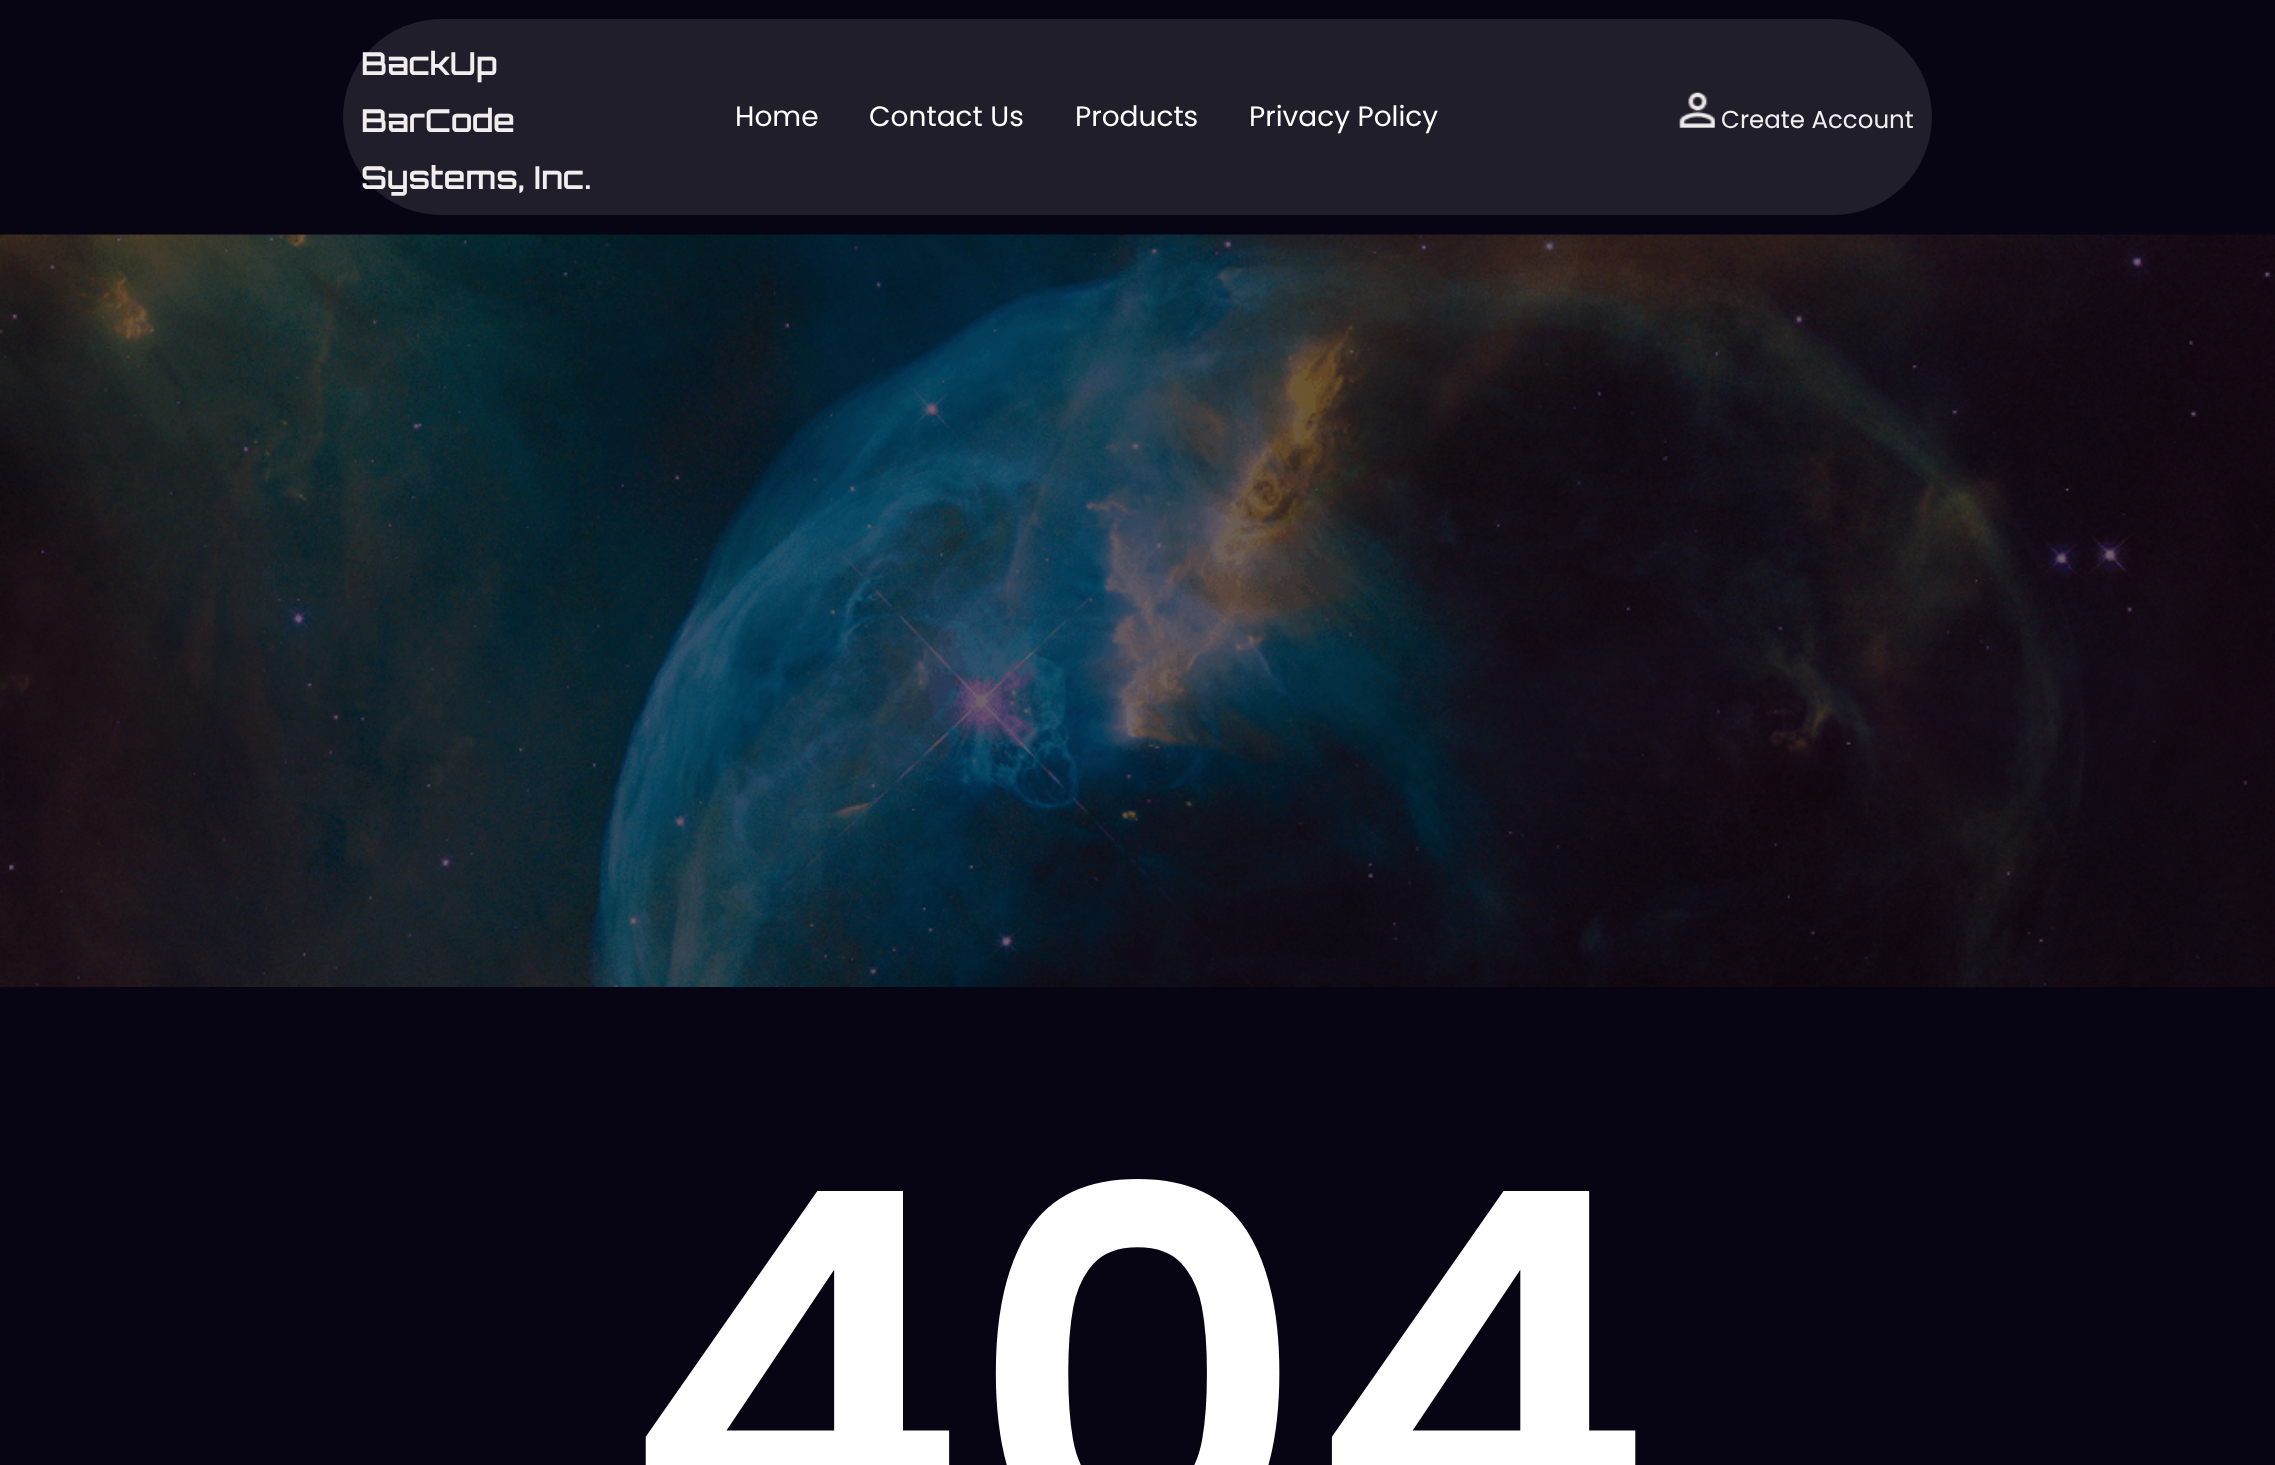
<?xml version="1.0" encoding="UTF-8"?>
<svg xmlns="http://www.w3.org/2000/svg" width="2275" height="1465">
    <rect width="100%" height="100%" fill="#070513"/>
    <rect x="343" y="19" width="1589" height="196" rx="98" fill="#201E2B"/>
    <text font-family="Orbitron" font-size="31.5" font-weight="600" fill="#F2EEEE">
        <tspan x="361" y="75">BackUp</tspan>
        <tspan x="361" y="132">BarCode</tspan>
        <tspan x="361" y="189">Systems, Inc.</tspan>
    </text>
    <text x="735" y="126" font-family="Poppins" font-size="28" fill="#FFFFFF">Home</text>
    <text x="869" y="126" font-family="Poppins" font-size="28" fill="#FFFFFF">Contact Us</text>
    <text x="1075" y="126" font-family="Poppins" font-size="28" fill="#FFFFFF">Products</text>
    <text x="1249" y="126" font-family="Poppins" font-size="28" fill="#FFFFFF">Privacy Policy</text>
    <image x="1679" y="92" width="36" height="36" href="img_01.png"/>
    <text x="1721" y="128" font-family="Poppins" font-size="24.5" fill="#F2EEEE">Create Account</text>
    <image x="0" y="234" width="2275" height="753" href="img_02.png"/>
    <text x="621" y="1569" font-family="Poppins" font-size="525" font-weight="600" fill="#FFFFFF">404</text>
</svg>
